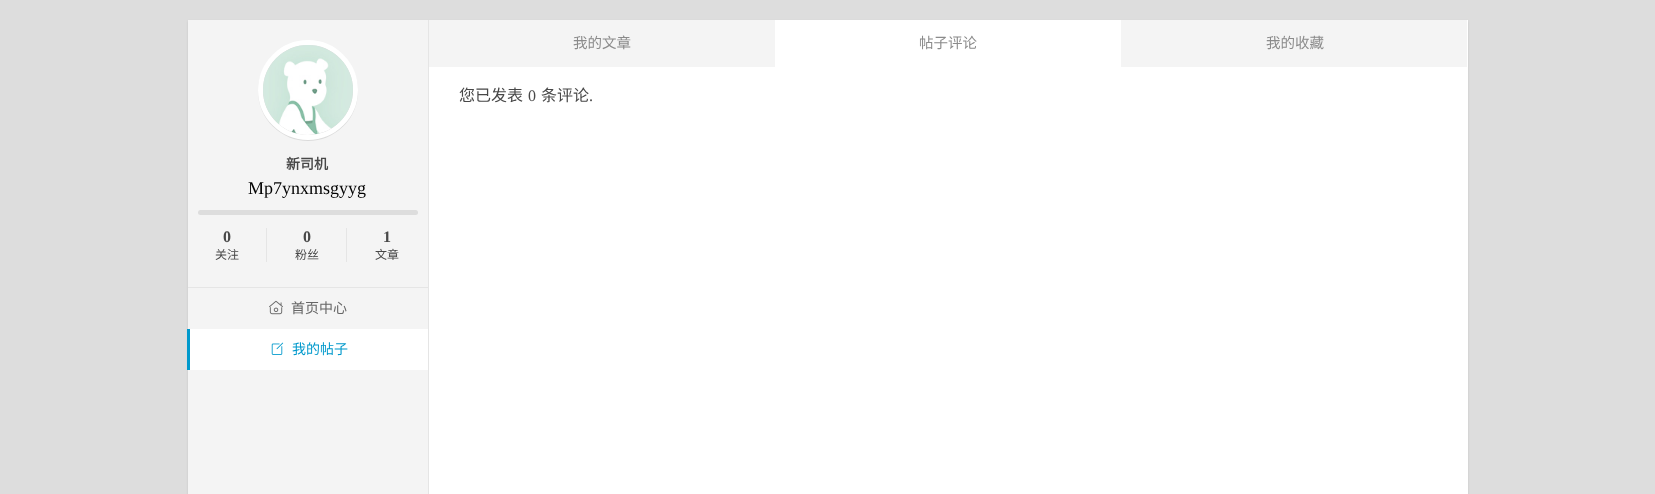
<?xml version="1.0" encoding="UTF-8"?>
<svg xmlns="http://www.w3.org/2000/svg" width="1655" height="494">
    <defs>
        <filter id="blur1" x="-50%" y="-200%" width="200%" height="500%"><feGaussianBlur stdDeviation="1"/></filter>
        <filter id="blur2" x="-50%" y="-200%" width="200%" height="500%"><feGaussianBlur stdDeviation="0.5"/></filter>
    </defs>
    <rect width="100%" height="100%" fill="#DDDDDD"/>
    <rect x="188" y="21" width="1280" height="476" fill="#000000" fill-opacity="0.1" filter="url(#blur1)"/>
    <rect x="188" y="20" width="240" height="474" fill="#F4F4F4"/>
    <rect x="429" y="20" width="1039" height="474" fill="#FFFFFF"/>
    <rect x="428" y="20" width="1" height="474" fill="#E5E5E5"/>
    <rect x="429" y="20" width="346" height="47" fill="#F4F4F4"/>
    <text x="573" y="48" font-family="Noto Sans CJK SC" font-size="14.5" fill="#8B8B8B">我的文章</text>
    <text x="919" y="48" font-family="Noto Sans CJK SC" font-size="14.5" fill="#8B8B8B">帖子评论</text>
    <rect x="1121" y="20" width="346" height="47" fill="#F4F4F4"/>
    <text x="1266" y="48" font-family="Noto Sans CJK SC" font-size="14.5" fill="#8B8B8B">我的收藏</text>
    <text x="459" y="101" font-family="Noto Sans CJK SC" font-size="16" fill="#484848">您已发表</text>
    <text x="528" y="101" font-family="Liberation Serif" font-size="16" fill="#484848">0</text>
    <text x="541" y="101" font-family="Noto Sans CJK SC" font-size="16" fill="#484848">条评论</text>
    <text x="589" y="101" font-family="Liberation Serif" font-size="16" fill="#484848">.</text>
    <rect x="188" y="287" width="240" height="1" fill="#E5E5E5"/>
    <rect x="258" y="41" width="100" height="100" rx="50" fill="#000000" fill-opacity="0.1" filter="url(#blur2)"/>
    <circle cx="308" cy="90" r="47.5" fill="none" stroke="#FFFFFF" stroke-width="5"/>
    <image x="263" y="45" width="90" height="90" href="img_01.png"/>
    <text x="286" y="169" font-family="Noto Sans CJK SC" font-size="14" font-weight="700" fill="#484848">新司机</text>
    <text x="248" y="194" font-family="Liberation Serif" font-size="18" fill="#000000">Mp7ynxmsgyyg</text>
    <rect x="198" y="210" width="220" height="5" rx="2.5" fill="#DDDDDD"/>
    <rect x="266" y="228" width="1" height="34" fill="#E5E5E5"/>
    <text x="223" y="242" font-family="Liberation Serif" font-size="16" font-weight="700" fill="#484848">0</text>
    <text x="215" y="259" font-family="Noto Sans CJK SC" font-size="12" fill="#484848">关注</text>
    <rect x="346" y="228" width="1" height="34" fill="#E5E5E5"/>
    <text x="303" y="242" font-family="Liberation Serif" font-size="16" font-weight="700" fill="#484848">0</text>
    <text x="295" y="259" font-family="Noto Sans CJK SC" font-size="12" fill="#484848">粉丝</text>
    <text x="383" y="242" font-family="Liberation Serif" font-size="16" font-weight="700" fill="#484848">1</text>
    <text x="375" y="259" font-family="Noto Sans CJK SC" font-size="12" fill="#484848">文章</text>
    <image x="269" y="300" width="14" height="15" href="img_02.png"/>
    <text x="291" y="313" font-family="Noto Sans CJK SC" font-size="14" fill="#666666">首页中心</text>
    <rect x="190" y="329" width="238" height="41" fill="#FFFFFF"/>
    <rect x="187" y="329" width="3" height="41" fill="#0099CC"/>
    <image x="271" y="342" width="13" height="13" href="img_03.png"/>
    <text x="292" y="354" font-family="Noto Sans CJK SC" font-size="14" fill="#0099CC">我的帖子</text>
</svg>
